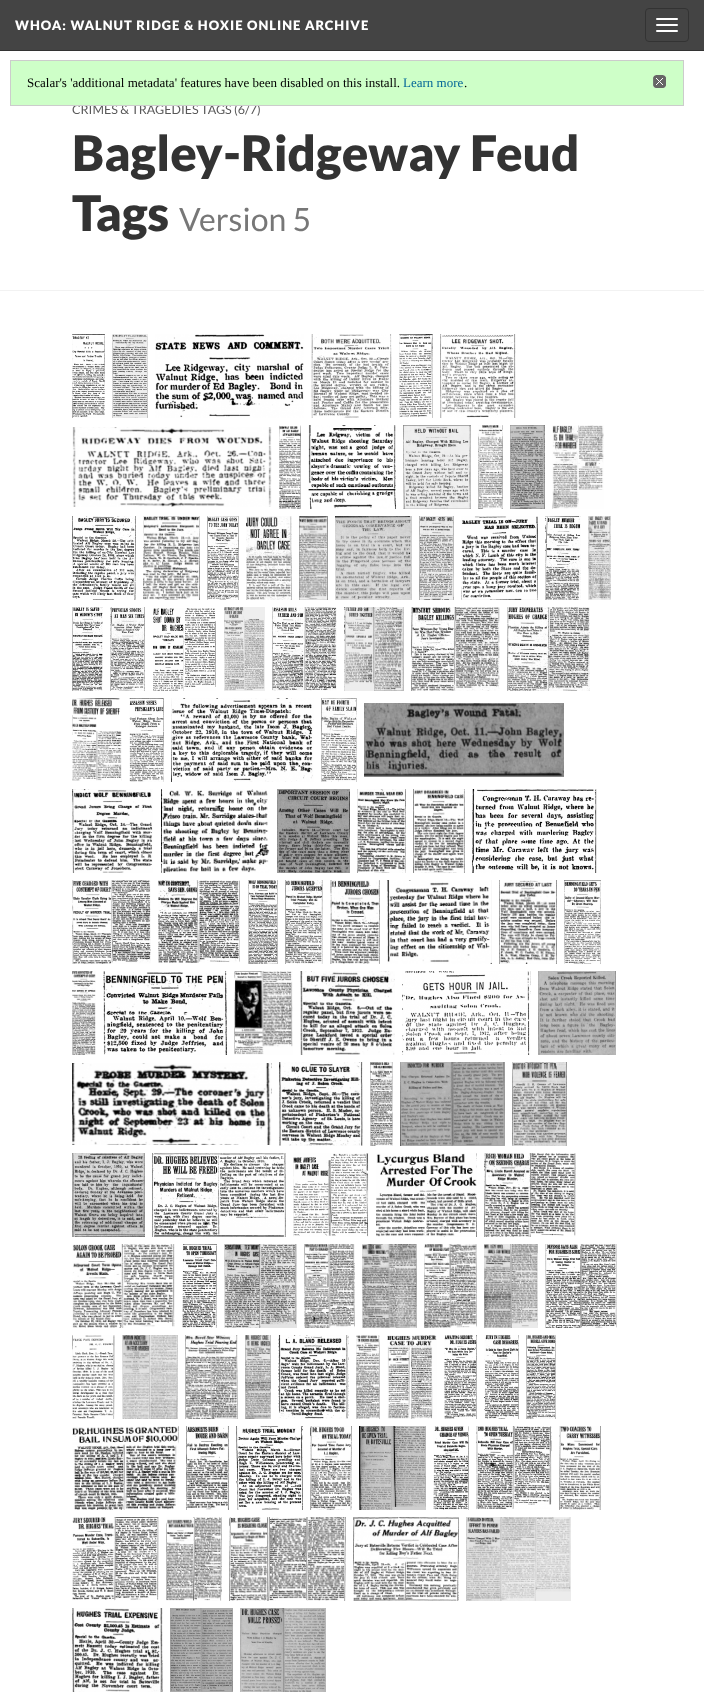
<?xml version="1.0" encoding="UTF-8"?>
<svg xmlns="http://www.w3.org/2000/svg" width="704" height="1697">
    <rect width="100%" height="100%" fill="#FFFFFF"/>
    <rect x="0" y="0" width="704" height="50" fill="#444444"/>
    <rect x="0" y="50" width="704" height="1" fill="#333333"/>
    <text x="15" y="30" font-family="Lato" font-size="13" font-weight="900" letter-spacing="1" fill="#FFFFFF">WHOA: WALNUT RIDGE &amp; HOXIE ONLINE ARCHIVE</text>
    <rect x="645.5" y="8.5" width="43" height="33" rx="3.5" fill="none" stroke="#333333"/>
    <rect x="656" y="18" width="22" height="2" rx="1" fill="#FFFFFF"/>
    <rect x="656" y="24" width="22" height="2" rx="1" fill="#FFFFFF"/>
    <rect x="656" y="30" width="22" height="2" rx="1" fill="#FFFFFF"/>
    <text x="72" y="114" font-family="Lato" font-size="12.5" fill="#595959">CRIMES &amp; TRAGEDIES TAGS (6/7)</text>
    <rect x="10.5" y="60.5" width="673" height="45" fill="#CEFFC8" stroke="#CCCCCC"/>
    <text x="27" y="87" font-family="Liberation Serif" font-size="13" fill="#000000">Scalar's 'additional metadata' features have been disabled on this install.</text>
    <text x="403" y="87" font-family="Liberation Serif" font-size="13" fill="#026697">Learn more</text>
    <text x="464" y="87" font-family="Liberation Serif" font-size="13" fill="#000000">.</text>
    <image x="653" y="75" width="13" height="13" href="img_01.png"/>
    <text font-family="Lato" font-size="49" font-weight="900" fill="#333333">
        <tspan x="72" y="171">Bagley-Ridgeway Feud</tspan>
        <tspan x="72" y="231">Tags</tspan>
    </text>
    <text x="179" y="231" font-family="Lato" font-size="32" fill="#777777">Version 5</text>
    <rect x="0" y="290" width="704" height="1" fill="#F2F2F2"/>
    <image x="72" y="334" width="33" height="84" href="img_02.png"/>
    <image x="112" y="334" width="36" height="84" href="img_03.png"/>
    <image x="155" y="334" width="149" height="84" href="img_04.png"/>
    <image x="311" y="334" width="81" height="84" href="img_05.png"/>
    <image x="399" y="334" width="34" height="84" href="img_06.png"/>
    <image x="440" y="334" width="76" height="84" href="img_07.png"/>
    <image x="72" y="427" width="200" height="80" href="img_08.png"/>
    <image x="279" y="425" width="22" height="84" href="img_09.png"/>
    <image x="308" y="425" width="88" height="84" href="img_10.png"/>
    <image x="403" y="425" width="68" height="84" href="img_11.png"/>
    <image x="478" y="425" width="25" height="84" href="img_12.png"/>
    <image x="510" y="425" width="35" height="84" href="img_13.png"/>
    <image x="552" y="425" width="52" height="84" href="img_14.png"/>
    <image x="72" y="516" width="64" height="84" href="img_15.png"/>
    <image x="143" y="516" width="57" height="84" href="img_16.png"/>
    <image x="207" y="516" width="32" height="84" href="img_17.png"/>
    <image x="246" y="516" width="46" height="84" href="img_18.png"/>
    <image x="299" y="516" width="29" height="84" href="img_19.png"/>
    <image x="335" y="516" width="77" height="84" href="img_20.png"/>
    <image x="419" y="516" width="35" height="84" href="img_21.png"/>
    <image x="461" y="516" width="77" height="84" href="img_22.png"/>
    <image x="545" y="516" width="36" height="84" href="img_23.png"/>
    <image x="588" y="516" width="23" height="84" href="img_24.png"/>
    <image x="72" y="607" width="31" height="84" href="img_25.png"/>
    <image x="110" y="607" width="35" height="84" href="img_26.png"/>
    <image x="153" y="608" width="63" height="83" href="img_27.png"/>
    <image x="224" y="607" width="41" height="84" href="img_28.png"/>
    <image x="272" y="607" width="65" height="84" href="img_29.png"/>
    <image x="344" y="607" width="60" height="84" href="img_30.png"/>
    <image x="411" y="607" width="89" height="84" href="img_31.png"/>
    <image x="507" y="607" width="83" height="84" href="img_32.png"/>
    <image x="72" y="698" width="50" height="83" href="img_33.png"/>
    <image x="129" y="698" width="35" height="84" href="img_34.png"/>
    <image x="171" y="698" width="143" height="84" href="img_35.png"/>
    <image x="321" y="698" width="36" height="84" href="img_36.png"/>
    <image x="364" y="703" width="200" height="74" href="img_37.png"/>
    <image x="72" y="789" width="81" height="84" href="img_38.png"/>
    <image x="161" y="789" width="109" height="84" href="img_39.png"/>
    <image x="277" y="789" width="73" height="84" href="img_40.png"/>
    <image x="357" y="789" width="49" height="84" href="img_41.png"/>
    <image x="413" y="789" width="52" height="84" href="img_42.png"/>
    <image x="472" y="789" width="125" height="84" href="img_43.png"/>
    <image x="72" y="880" width="79" height="84" href="img_44.png"/>
    <image x="158" y="880" width="82" height="83" href="img_45.png"/>
    <image x="248" y="880" width="30" height="84" href="img_46.png"/>
    <image x="285" y="880" width="38" height="84" href="img_47.png"/>
    <image x="330" y="880" width="50" height="84" href="img_48.png"/>
    <image x="387" y="880" width="105" height="84" href="img_49.png"/>
    <image x="499" y="880" width="58" height="84" href="img_50.png"/>
    <image x="564" y="880" width="37" height="84" href="img_51.png"/>
    <image x="72" y="971" width="24" height="84" href="img_52.png"/>
    <image x="103" y="971" width="124" height="84" href="img_53.png"/>
    <image x="234" y="971" width="59" height="84" href="img_54.png"/>
    <image x="300" y="971" width="95" height="84" href="img_55.png"/>
    <image x="402" y="971" width="129" height="84" href="img_56.png"/>
    <image x="538" y="971" width="78" height="84" href="img_57.png"/>
    <image x="72" y="1063" width="200" height="82" href="img_58.png"/>
    <image x="279" y="1062" width="84" height="84" href="img_59.png"/>
    <image x="370" y="1062" width="23" height="84" href="img_60.png"/>
    <image x="400" y="1062" width="105" height="84" href="img_61.png"/>
    <image x="512" y="1062" width="55" height="84" href="img_62.png"/>
    <image x="72" y="1153" width="73" height="84" href="img_63.png"/>
    <image x="152" y="1153" width="134" height="84" href="img_64.png"/>
    <image x="293" y="1153" width="76" height="84" href="img_65.png"/>
    <image x="376" y="1153" width="101" height="84" href="img_66.png"/>
    <image x="484" y="1153" width="92" height="84" href="img_67.png"/>
    <image x="72" y="1244" width="103" height="84" href="img_68.png"/>
    <image x="182" y="1244" width="35" height="84" href="img_69.png"/>
    <image x="224" y="1244" width="73" height="84" href="img_70.png"/>
    <image x="304" y="1244" width="51" height="84" href="img_71.png"/>
    <image x="362" y="1244" width="55" height="84" href="img_72.png"/>
    <image x="424" y="1244" width="53" height="84" href="img_73.png"/>
    <image x="484" y="1244" width="54" height="84" href="img_74.png"/>
    <image x="545" y="1244" width="72" height="84" href="img_75.png"/>
    <image x="72" y="1335" width="43" height="84" href="img_76.png"/>
    <image x="122" y="1335" width="56" height="84" href="img_77.png"/>
    <image x="185" y="1335" width="53" height="84" href="img_78.png"/>
    <image x="245" y="1335" width="26" height="84" href="img_79.png"/>
    <image x="278" y="1335" width="71" height="84" href="img_80.png"/>
    <image x="356" y="1335" width="24" height="84" href="img_81.png"/>
    <image x="387" y="1335" width="50" height="84" href="img_82.png"/>
    <image x="444" y="1335" width="33" height="84" href="img_83.png"/>
    <image x="484" y="1335" width="35" height="84" href="img_84.png"/>
    <image x="526" y="1335" width="30" height="84" href="img_85.png"/>
    <image x="72" y="1426" width="107" height="84" href="img_86.png"/>
    <image x="186" y="1426" width="43" height="84" href="img_87.png"/>
    <image x="236" y="1426" width="67" height="84" href="img_88.png"/>
    <image x="310" y="1426" width="42" height="84" href="img_89.png"/>
    <image x="359" y="1426" width="67" height="84" href="img_90.png"/>
    <image x="433" y="1426" width="36" height="84" href="img_91.png"/>
    <image x="476" y="1426" width="76" height="84" href="img_92.png"/>
    <image x="559" y="1426" width="42" height="84" href="img_93.png"/>
    <image x="72" y="1517" width="87" height="84" href="img_94.png"/>
    <image x="166" y="1517" width="56" height="84" href="img_95.png"/>
    <image x="229" y="1517" width="117" height="84" href="img_96.png"/>
    <image x="353" y="1517" width="106" height="84" href="img_97.png"/>
    <image x="466" y="1517" width="105" height="84" href="img_98.png"/>
    <image x="72" y="1608" width="91" height="84" href="img_99.png"/>
    <image x="170" y="1608" width="63" height="84" href="img_100.png"/>
    <image x="240" y="1608" width="86" height="84" href="img_101.png"/>
</svg>
